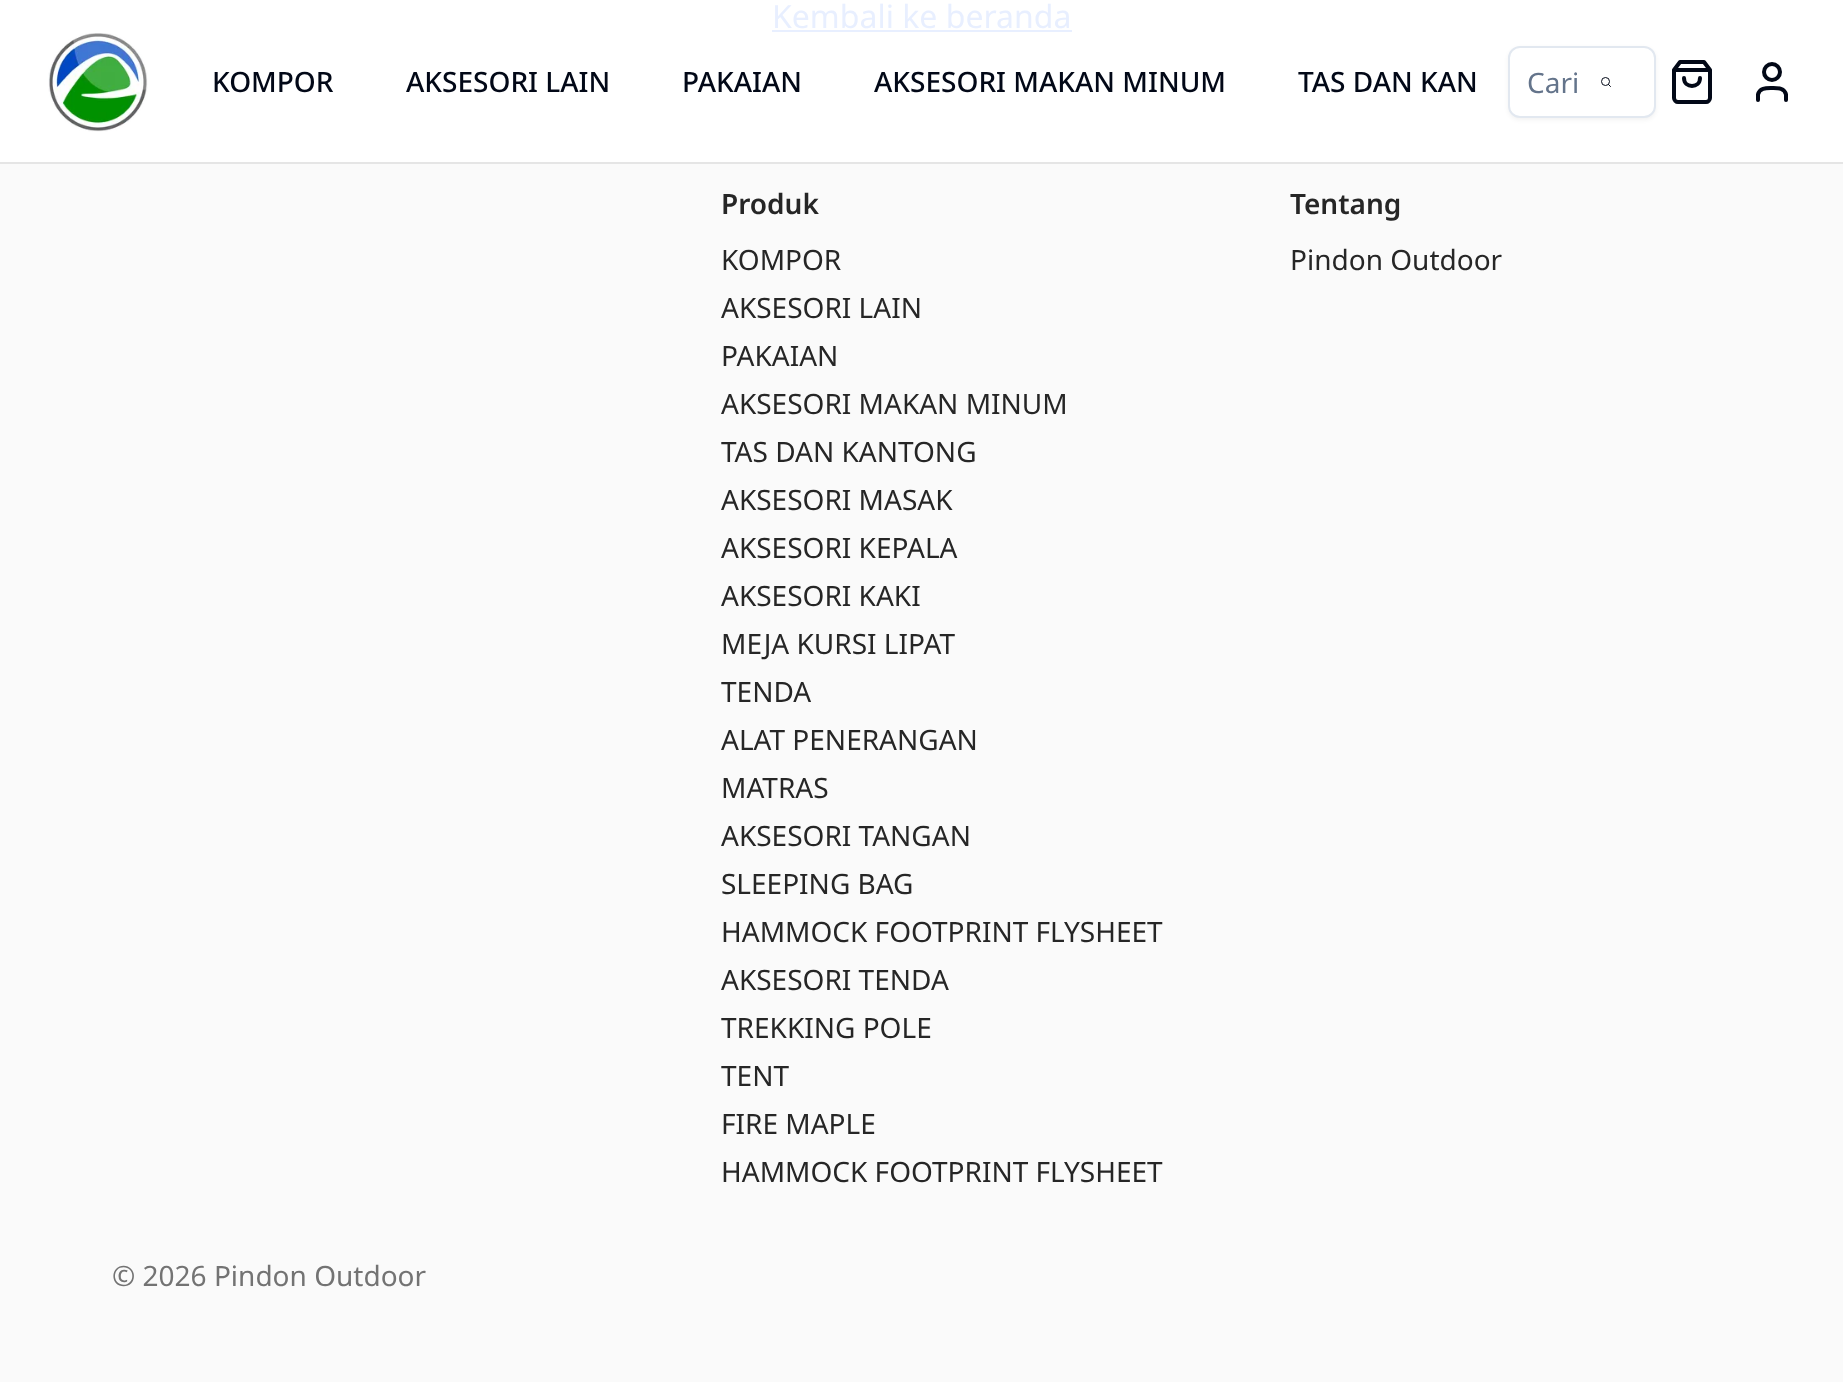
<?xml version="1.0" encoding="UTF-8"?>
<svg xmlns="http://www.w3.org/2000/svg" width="1843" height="1382">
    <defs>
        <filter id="blur1" x="-50%" y="-200%" width="200%" height="500%"><feGaussianBlur stdDeviation="2"/></filter>
    </defs>
    <rect width="100%" height="100%" fill="#FFFFFF"/>
    <text x="772" y="28" font-family="Noto Sans" font-size="32" fill="#E8EFFF">Kembali ke beranda</text>
    <rect x="772" y="30" width="300" height="2" fill="#E8EFFF"/>
    <image x="48" y="33" width="100" height="99" href="img_01.png"/>
    <text x="212" y="92" font-family="Noto Sans" font-size="28" font-weight="500" fill="#020817">KOMPOR</text>
    <text x="406" y="92" font-family="Noto Sans" font-size="28" font-weight="500" fill="#020817">AKSESORI LAIN</text>
    <text x="682" y="92" font-family="Noto Sans" font-size="28" font-weight="500" fill="#020817">PAKAIAN</text>
    <text x="874" y="92" font-family="Noto Sans" font-size="28" font-weight="500" fill="#020817">AKSESORI MAKAN MINUM</text>
    <text x="1298" y="92" font-family="Noto Sans" font-size="28" font-weight="500" fill="#020817">TAS DAN KAN</text>
    <rect x="1508" y="48" width="148" height="72" rx="12" fill="#000000" fill-opacity="0.05" filter="url(#blur1)"/>
    <rect x="1509" y="47" width="146" height="70" rx="11" fill="#FFFFFF" stroke="#E2E8F0" stroke-width="2"/>
    <text x="1527" y="93" font-family="Noto Sans" font-size="28" fill="#64748B">Cari</text>
    <circle cx="1605.5" cy="81.5" r="4" fill="none" stroke="#020817"/>
    <path d="M 1610.5 86.5 L 1608.5 84.5" fill="none" stroke="#020817" stroke-linecap="round" stroke-linejoin="round"/>
    <path d="M 1680 62 L 1674 70 V 98 C 1674 100 1676 102 1678 102 H 1706 C 1708 102 1710 100 1710 98 V 70 L 1704 62 Z M 1674 70 H 1710 M 1700 78 C 1700 88.5 1684 88.5 1684 78" fill="none" stroke="#020817" stroke-width="4" stroke-linecap="round" stroke-linejoin="round"/>
    <path d="M 1786 100 V 94.5 C 1784.5 87.5 1777.5 88 1772 88 C 1766.5 88 1759.5 87.5 1758 94.5 V 100" fill="none" stroke="#020817" stroke-width="4" stroke-linecap="round" stroke-linejoin="round"/>
    <circle cx="1772" cy="72" r="8" fill="none" stroke="#020817" stroke-width="4"/>
    <rect x="0" y="162" width="1843" height="2" fill="#E5E5E5"/>
    <rect x="0" y="164" width="1843" height="1218" fill="#FAFAFA"/>
    <text x="721" y="214" font-family="Noto Sans" font-size="28" font-weight="600" fill="#262626">Produk</text>
    <text font-family="Noto Sans" font-size="28" fill="#262626">
        <tspan x="721" y="270">KOMPOR</tspan>
        <tspan x="721" y="318">AKSESORI LAIN</tspan>
        <tspan x="721" y="366">PAKAIAN</tspan>
        <tspan x="721" y="414">AKSESORI MAKAN MINUM</tspan>
        <tspan x="721" y="462">TAS DAN KANTONG</tspan>
        <tspan x="721" y="510">AKSESORI MASAK</tspan>
        <tspan x="721" y="558">AKSESORI KEPALA</tspan>
        <tspan x="721" y="606">AKSESORI KAKI</tspan>
        <tspan x="721" y="654">MEJA KURSI LIPAT</tspan>
        <tspan x="721" y="702">TENDA</tspan>
        <tspan x="721" y="750">ALAT PENERANGAN</tspan>
        <tspan x="721" y="798">MATRAS</tspan>
        <tspan x="721" y="846">AKSESORI TANGAN</tspan>
        <tspan x="721" y="894">SLEEPING BAG</tspan>
        <tspan x="721" y="942">HAMMOCK FOOTPRINT FLYSHEET</tspan>
        <tspan x="721" y="990">AKSESORI TENDA</tspan>
        <tspan x="721" y="1038">TREKKING POLE</tspan>
        <tspan x="721" y="1086">TENT</tspan>
        <tspan x="721" y="1134">FIRE MAPLE</tspan>
        <tspan x="721" y="1182">HAMMOCK FOOTPRINT FLYSHEET</tspan>
    </text>
    <text x="1290" y="214" font-family="Noto Sans" font-size="28" font-weight="600" fill="#262626">Tentang</text>
    <text x="1290" y="270" font-family="Noto Sans" font-size="28" fill="#262626">Pindon Outdoor</text>
    <text x="112" y="1286" font-family="Noto Sans" font-size="28" fill="#737373">© 2026 Pindon Outdoor</text>
</svg>
